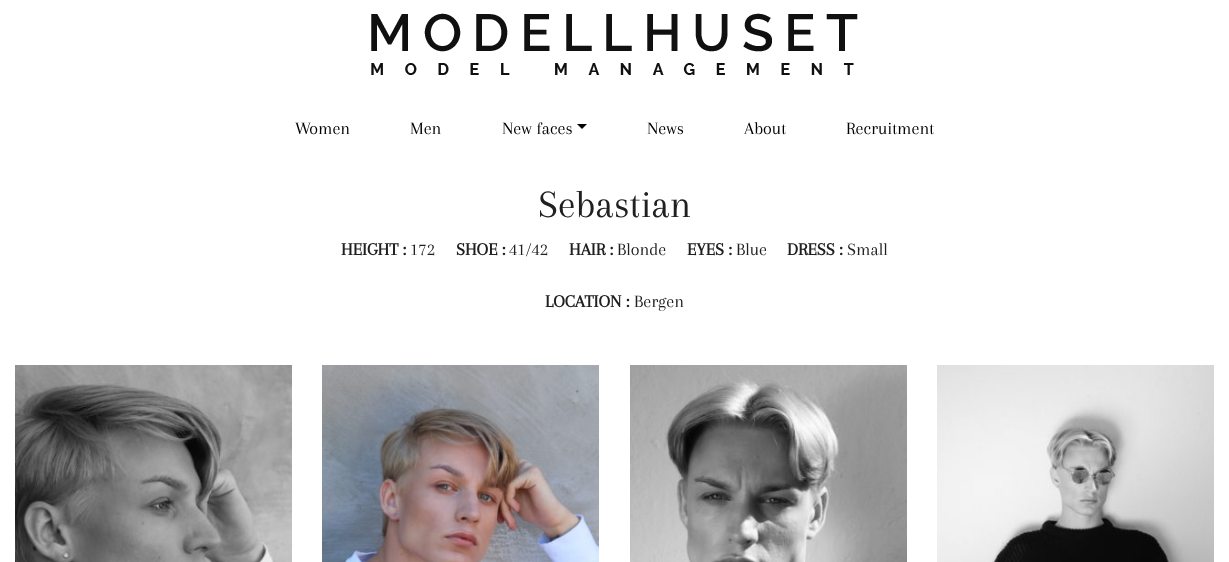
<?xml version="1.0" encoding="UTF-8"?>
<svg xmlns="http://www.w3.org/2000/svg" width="1229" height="562">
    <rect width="100%" height="100%" fill="#FFFFFF"/>
    <image x="371" y="13" width="487" height="62" href="img_01.png"/>
    <text x="295" y="134" font-family="Arapey" font-size="18" fill="#000000">Women</text>
    <text x="410" y="134" font-family="Arapey" font-size="18" fill="#000000">Men</text>
    <text x="502" y="134" font-family="Arapey" font-size="18" fill="#000000">New faces</text>
    <path d="M 577 124 H 587 L 582 129 Z" fill="#000000"/>
    <text x="647" y="134" font-family="Arapey" font-size="18" fill="#000000">News</text>
    <text x="744" y="134" font-family="Arapey" font-size="18" fill="#000000">About</text>
    <text x="846" y="134" font-family="Arapey" font-size="18" fill="#000000">Recruitment</text>
    <text x="538" y="217" font-family="Arapey" font-size="40" fill="#202020">Sebastian</text>
    <text x="341" y="255" font-family="Arapey" font-size="18" font-weight="700" fill="#202020">HEIGHT :</text>
    <text x="410" y="255" font-family="Arapey" font-size="18" fill="#202020">172</text>
    <text x="456" y="255" font-family="Arapey" font-size="18" font-weight="700" fill="#202020">SHOE :</text>
    <text x="509" y="255" font-family="Arapey" font-size="18" fill="#202020">41/42</text>
    <text x="569" y="255" font-family="Arapey" font-size="18" font-weight="700" fill="#202020">HAIR :</text>
    <text x="617" y="255" font-family="Arapey" font-size="18" fill="#202020">Blonde</text>
    <text x="687" y="255" font-family="Arapey" font-size="18" font-weight="700" fill="#202020">EYES :</text>
    <text x="736" y="255" font-family="Arapey" font-size="18" fill="#202020">Blue</text>
    <text x="787" y="255" font-family="Arapey" font-size="18" font-weight="700" fill="#202020">DRESS :</text>
    <text x="847" y="255" font-family="Arapey" font-size="18" fill="#202020">Small</text>
    <text x="545" y="307" font-family="Arapey" font-size="18" font-weight="700" fill="#202020">LOCATION :</text>
    <text x="634" y="307" font-family="Arapey" font-size="18" fill="#202020">Bergen</text>
    <image x="15" y="365" width="277" height="197" href="img_02.png"/>
    <image x="322" y="365" width="277" height="197" href="img_03.png"/>
    <image x="630" y="365" width="277" height="197" href="img_04.png"/>
    <image x="937" y="365" width="277" height="197" href="img_05.png"/>
</svg>
